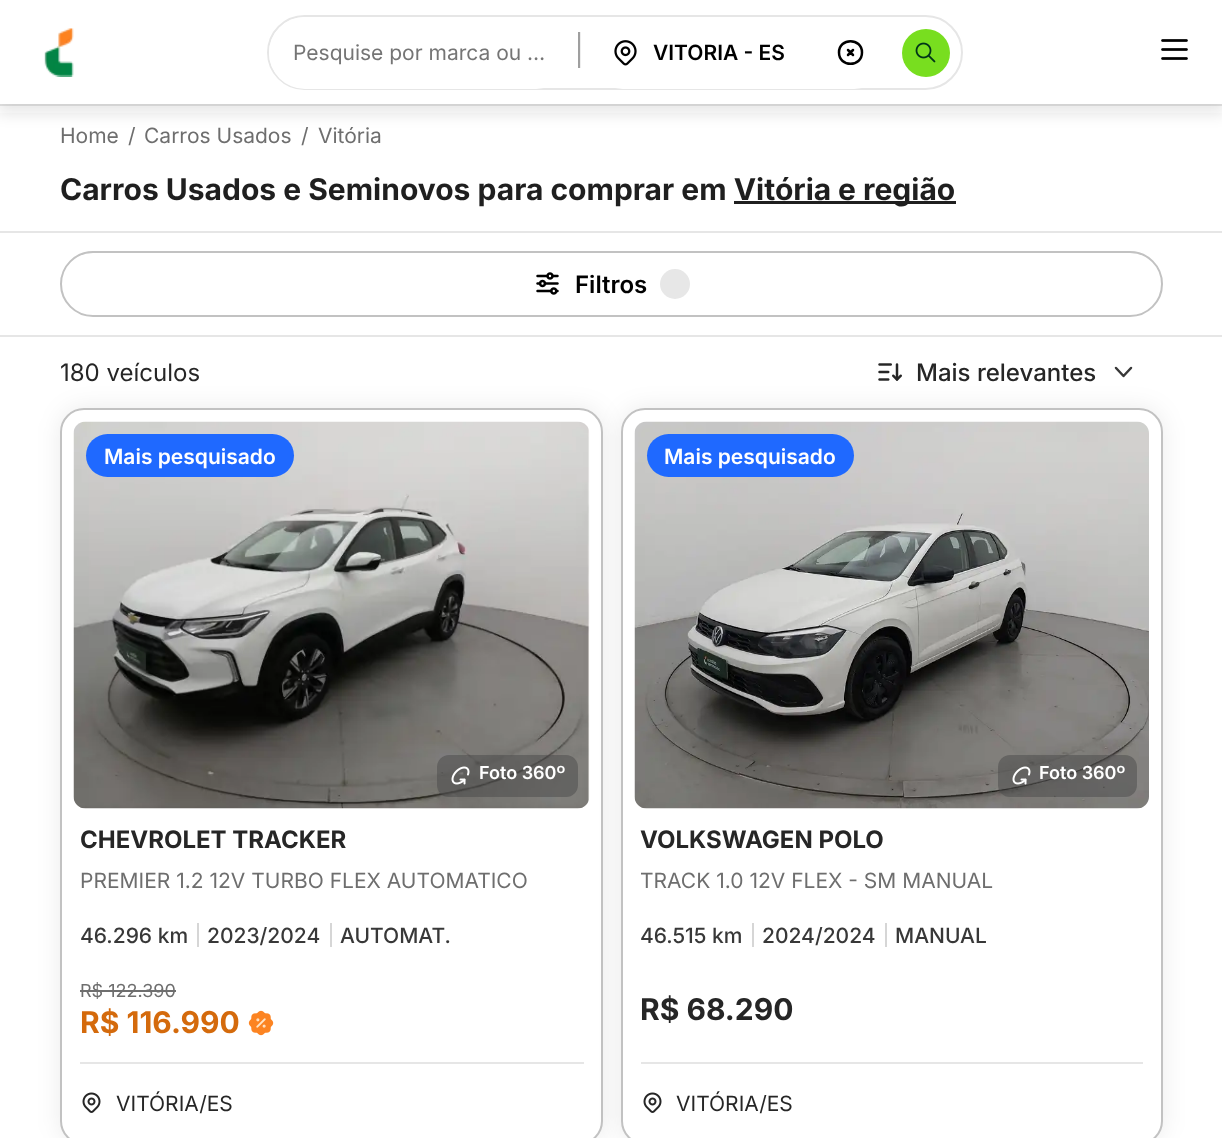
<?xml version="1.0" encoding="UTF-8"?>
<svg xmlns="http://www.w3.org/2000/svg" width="1222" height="1138">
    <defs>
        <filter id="blur1" x="-50%" y="-200%" width="200%" height="500%"><feGaussianBlur stdDeviation="7.5"/></filter>
        <filter id="blur2" x="-50%" y="-200%" width="200%" height="500%"><feGaussianBlur stdDeviation="12"/></filter>
        <clipPath id="clip1"><rect x="641" y="864" width="502" height="32"/></clipPath>
    </defs>
    <rect width="100%" height="100%" fill="#FFFFFF"/>
    <rect x="0" y="104" width="1222" height="2" fill="#E6E6E6"/>
    <rect x="-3" y="3" width="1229" height="110" fill="#262626" fill-opacity="0.12" filter="url(#blur1)"/>
    <rect x="0" y="0" width="1222" height="104" fill="#FFFFFF"/>
    <image x="44" y="28" width="30" height="49" href="img_01.png"/>
    <rect x="268" y="16" width="694" height="73" rx="36.5" fill="none" stroke="#E6E6E6" stroke-width="2"/>
    <rect x="269" y="17" width="303" height="72" rx="36" fill="#FFFFFF"/>
    <text x="293" y="60" font-family="Inter" font-size="21" fill="#757575">Pesquise por marca ou …</text>
    <rect x="580" y="32" width="1" height="36" fill="#EEEEEE"/>
    <rect x="578" y="66" width="3" height="2" fill="#EEEEEE"/>
    <rect x="578" y="32" width="2" height="36" fill="#9F9F9F"/>
    <rect x="587" y="17" width="303" height="72" rx="36" fill="#FFFFFF"/>
    <image x="614" y="40" width="23" height="26" href="img_02.png"/>
    <text x="653" y="60" font-family="Inter" font-size="21" font-weight="600" fill="#000000">VITORIA - ES</text>
    <path d="M 839 52.5 C 839 67.5 862 67.5 862 52.5 C 862 37.5 839 37.5 839 52.5 M 848 50 L 853 55 M 853 50 L 848 55" fill="none" stroke="#000000" stroke-width="2.5" stroke-linecap="round" stroke-linejoin="round"/>
    <circle cx="926" cy="53" r="24" fill="#78DE1F"/>
    <image x="915" y="42" width="21" height="21" href="img_03.png"/>
    <image x="1161" y="39" width="27" height="21" href="img_04.png"/>
    <rect x="0" y="231" width="1222" height="2" fill="#E6E6E6"/>
    <text x="60" y="143" font-family="Inter" font-size="21" fill="#6E6E6E">Home</text>
    <text x="128" y="143" font-family="Inter" font-size="21" fill="#6E6E6E">/</text>
    <text x="144" y="143" font-family="Inter" font-size="21" fill="#6E6E6E">Carros Usados</text>
    <text x="301" y="143" font-family="Inter" font-size="21" fill="#6E6E6E">/</text>
    <text x="318" y="143" font-family="Inter" font-size="21" fill="#6E6E6E">Vitória</text>
    <text x="60" y="200" font-family="Inter" font-size="30" font-weight="700" fill="#1F1F1F">Carros Usados e Seminovos para comprar em Vitória</text>
    <rect x="734" y="201" width="222" height="3" fill="#1F1F1F"/>
    <text x="838" y="200" font-family="Inter" font-size="30" font-weight="700" fill="#1F1F1F">e região</text>
    <rect x="0" y="335" width="1222" height="2" fill="#E6E6E6"/>
    <rect x="61" y="252" width="1101" height="64" rx="32" fill="none" stroke="#C2C2C2" stroke-width="2"/>
    <image x="536" y="272" width="23" height="23" href="img_05.png"/>
    <text x="575" y="293" font-family="Inter" font-size="24" font-weight="600" fill="#000000">Filtros</text>
    <circle cx="675" cy="284" r="15" fill="#E7E7E7"/>
    <text x="60" y="381" font-family="Inter" font-size="24" fill="#262626">180 veículos</text>
    <rect x="60" y="408" width="543" height="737" rx="24" fill="#000000" fill-opacity="0.08" filter="url(#blur2)"/>
    <rect x="61" y="409" width="541" height="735" rx="23" fill="#FFFFFF" stroke="#C2C2C2" stroke-width="2"/>
    <rect x="621" y="408" width="542" height="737" rx="24" fill="#000000" fill-opacity="0.08" filter="url(#blur2)"/>
    <image x="878" y="363" width="24" height="18" href="img_06.png"/>
    <text x="916" y="381" font-family="Inter" font-size="24" font-weight="500" fill="#262626">Mais relevantes</text>
    <path d="M 1116 368 L 1123.5 376 L 1131 368" fill="none" stroke="#383838" stroke-width="2.5" stroke-linecap="round" stroke-linejoin="round"/>
    <image x="73" y="421" width="517" height="388" href="img_07.png"/>
    <rect x="86" y="434" width="208" height="43" rx="21.5" fill="#1F69FF"/>
    <text x="104" y="464" font-family="Inter" font-size="21" font-weight="600" fill="#FFFFFF">Mais pesquisado</text>
    <rect x="437" y="755" width="141" height="42" rx="12" fill="#4A4A4A" fill-opacity="0.5"/>
    <image x="451" y="766" width="19" height="19" href="img_08.png"/>
    <text x="479" y="779" font-family="Inter" font-size="18" font-weight="600" fill="#FFFFFF">Foto 360º</text>
    <text x="80" y="848" font-family="Inter" font-size="24" font-weight="700" fill="#262626">CHEVROLET TRACKER</text>
    <text x="80" y="888" font-family="Inter" font-size="21" fill="#6E6E6E">PREMIER 1.2 12V TURBO FLEX AUTOMATICO</text>
    <text x="80" y="943" font-family="Inter" font-size="21" font-weight="500" fill="#383838">46.296 km</text>
    <rect x="197" y="923" width="2" height="24" fill="#D6D6D6"/>
    <text x="207" y="943" font-family="Inter" font-size="21" font-weight="500" fill="#383838">2023/2024</text>
    <rect x="330" y="923" width="2" height="24" fill="#D6D6D6"/>
    <text x="340" y="943" font-family="Inter" font-size="21" font-weight="500" fill="#383838">AUTOMAT.</text>
    <text x="80" y="997" font-family="Inter" font-size="18" fill="#6E6E6E">R$ 122.390</text>
    <rect x="80" y="990" width="96" height="2" fill="#6E6E6E"/>
    <text x="80" y="1033" font-family="Inter" font-size="30" font-weight="700" fill="#D46A0C">R$ 116.990</text>
    <image x="248" y="1010" width="26" height="26" href="img_09.png"/>
    <rect x="80" y="1062" width="504" height="2" fill="#E6E6E6"/>
    <image x="82" y="1092" width="19" height="21" href="img_10.png"/>
    <text x="116" y="1111" font-family="Inter" font-size="21" fill="#262626">VITÓRIA/ES</text>
    <rect x="622" y="409" width="540" height="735" rx="23" fill="#FFFFFF" stroke="#C2C2C2" stroke-width="2"/>
    <image x="634" y="421" width="515" height="388" href="img_11.png"/>
    <rect x="647" y="434" width="207" height="43" rx="21.5" fill="#1F69FF"/>
    <text x="664" y="464" font-family="Inter" font-size="21" font-weight="600" fill="#FFFFFF">Mais pesquisado</text>
    <rect x="998" y="755" width="139" height="42" rx="12" fill="#4A4A4A" fill-opacity="0.5"/>
    <image x="1012" y="766" width="19" height="19" href="img_12.png"/>
    <text x="1039" y="779" font-family="Inter" font-size="18" font-weight="600" fill="#FFFFFF">Foto 360º</text>
    <text x="640" y="848" font-family="Inter" font-size="24" font-weight="700" fill="#262626">VOLKSWAGEN POLO</text>
    <g clip-path="url(#clip1)">
        <text x="640" y="888" font-family="Inter" font-size="21" fill="#6E6E6E">TRACK 1.0 12V FLEX - SM MANUAL</text>
    </g>
    <text x="640" y="943" font-family="Inter" font-size="21" font-weight="500" fill="#383838">46.515 km</text>
    <rect x="752" y="923" width="2" height="24" fill="#D6D6D6"/>
    <text x="762" y="943" font-family="Inter" font-size="21" font-weight="500" fill="#383838">2024/2024</text>
    <rect x="885" y="923" width="2" height="24" fill="#D6D6D6"/>
    <text x="895" y="943" font-family="Inter" font-size="21" font-weight="500" fill="#383838">MANUAL</text>
    <text x="640" y="1020" font-family="Inter" font-size="30" font-weight="700" fill="#262626">R$ 68.290</text>
    <rect x="641" y="1062" width="502" height="2" fill="#E6E6E6"/>
    <image x="643" y="1092" width="19" height="21" href="img_10.png"/>
    <text x="676" y="1111" font-family="Inter" font-size="21" fill="#262626">VITÓRIA/ES</text>
</svg>
